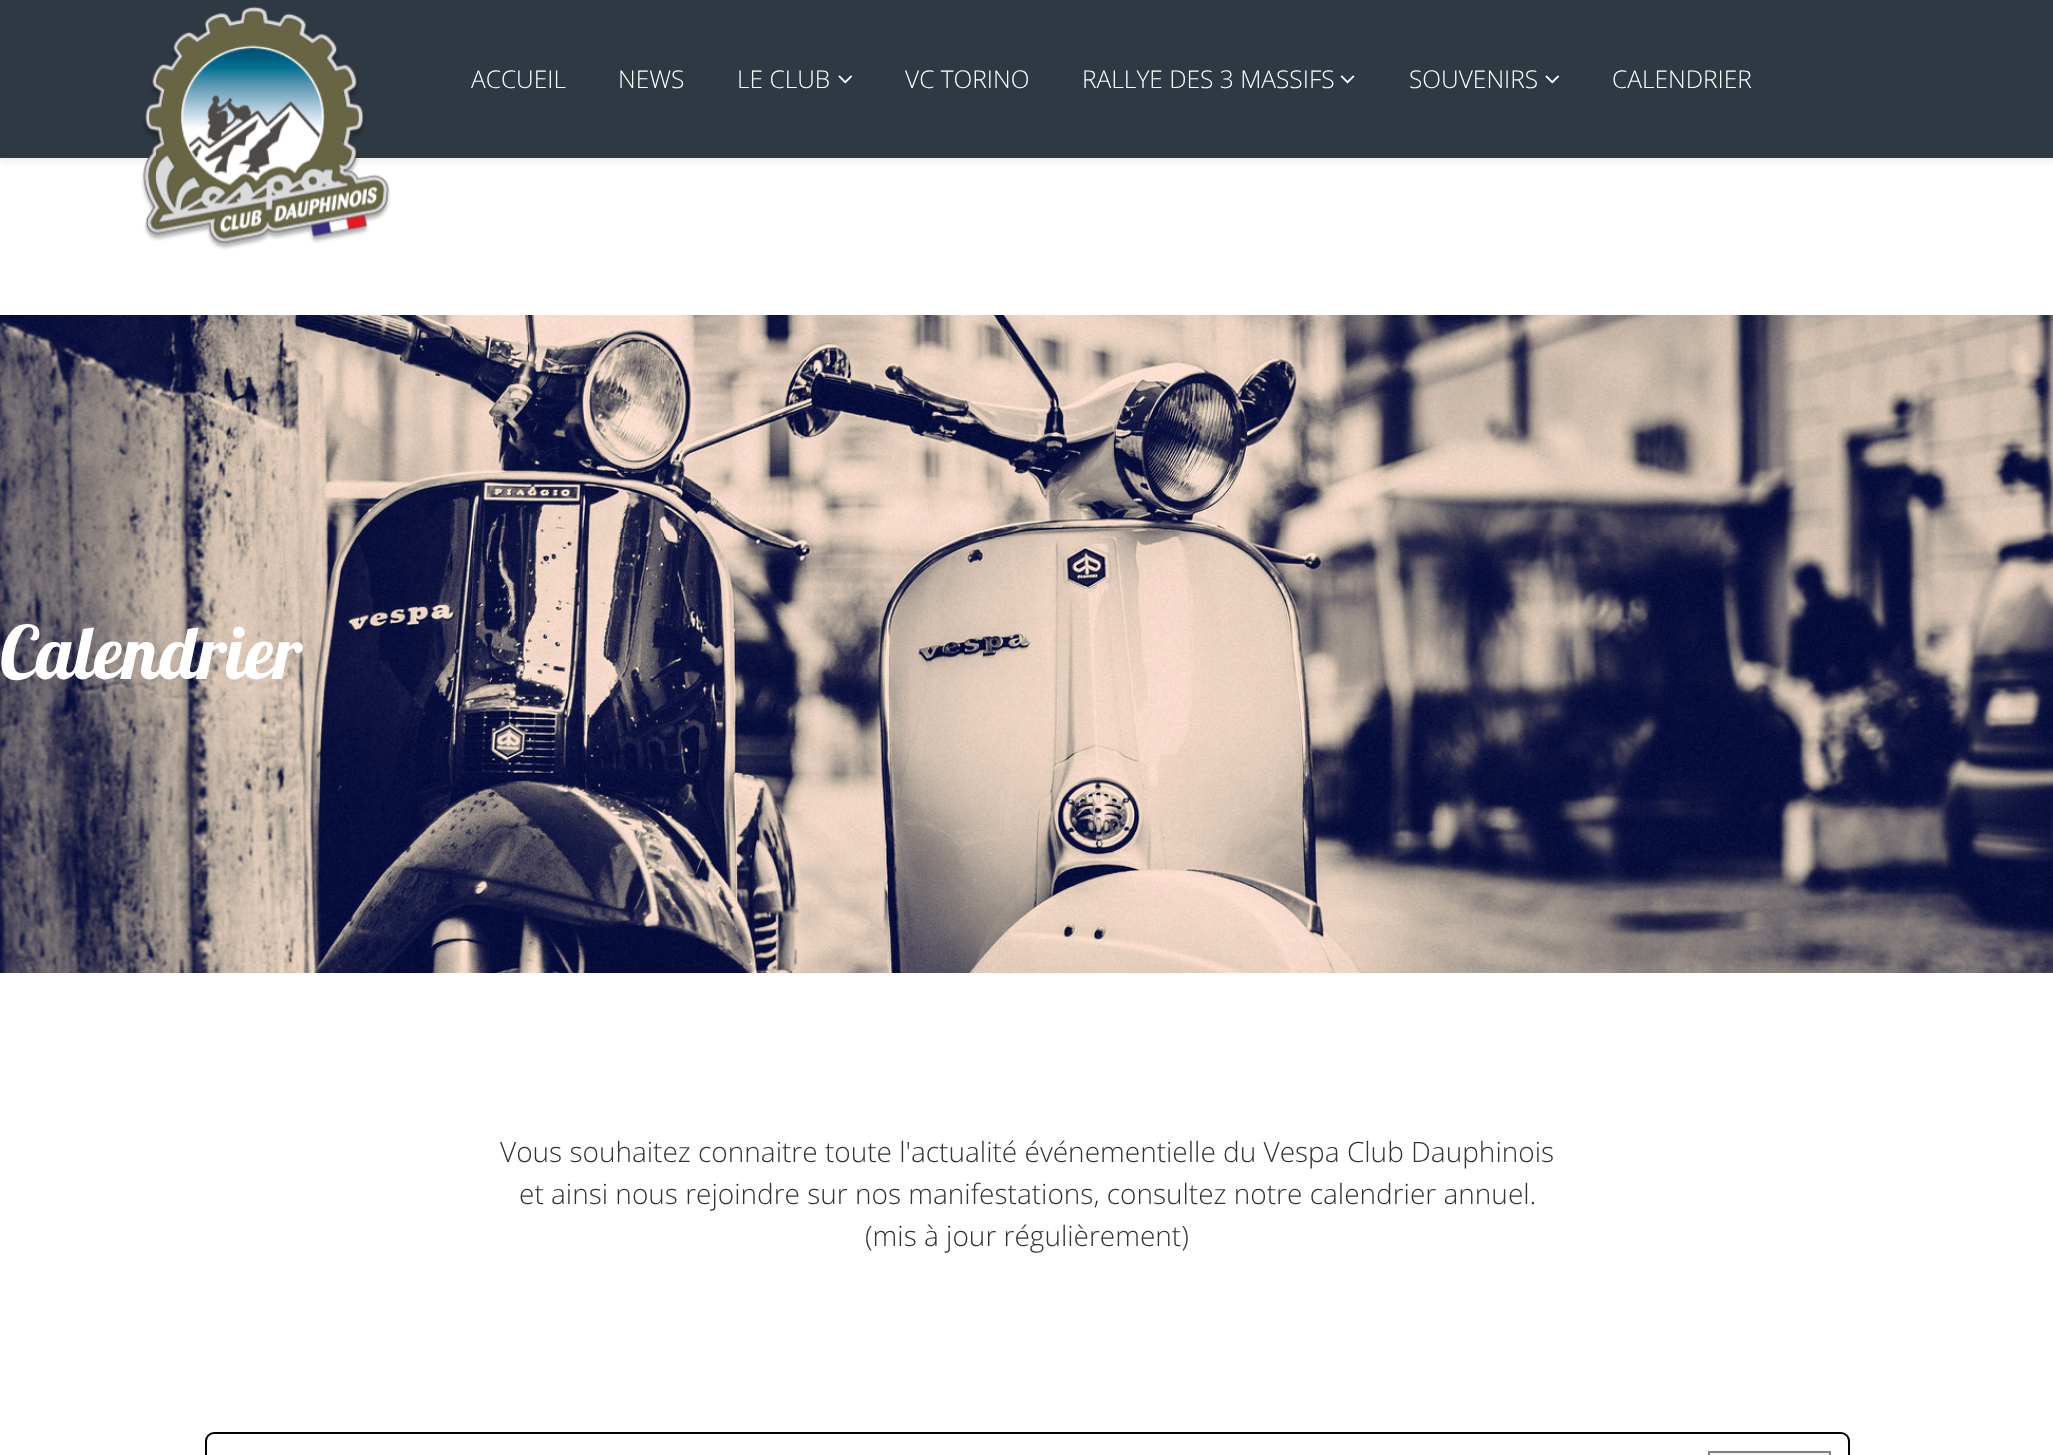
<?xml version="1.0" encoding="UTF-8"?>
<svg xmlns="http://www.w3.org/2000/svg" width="2053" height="1455">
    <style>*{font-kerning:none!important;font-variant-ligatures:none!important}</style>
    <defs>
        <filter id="blur1" x="-50%" y="-200%" width="200%" height="500%"><feGaussianBlur stdDeviation="2.5"/></filter>
    </defs>
    <rect width="100%" height="100%" fill="#FFFFFF"/>
    <rect x="0" y="5" width="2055" height="158" fill="#000000" fill-opacity="0.05" filter="url(#blur1)"/>
    <rect x="0" y="0" width="2053" height="158" fill="#2E3944"/>
    <image x="141" y="6" width="250" height="244" href="img_01.png"/>
    <text x="471" y="88" font-family="Open Sans" font-size="24.5" font-weight="300" fill="#FFFFFF">ACCUEIL</text>
    <text x="618" y="88" font-family="Open Sans" font-size="24.5" font-weight="300" fill="#FFFFFF">NEWS</text>
    <text x="737" y="88" font-family="Open Sans" font-size="24.5" font-weight="300" fill="#FFFFFF">LE CLUB</text>
    <image x="838" y="75" width="14" height="9" href="img_02.png"/>
    <text x="905" y="88" font-family="Open Sans" font-size="24.5" font-weight="300" fill="#FFFFFF">VC TORINO</text>
    <text x="1082" y="88" font-family="Open Sans" font-size="24.5" font-weight="300" fill="#FFFFFF">RALLYE DES 3 MASSIFS</text>
    <image x="1340" y="75" width="15" height="9" href="img_03.png"/>
    <text x="1409" y="88" font-family="Open Sans" font-size="24.5" font-weight="300" fill="#FFFFFF">SOUVENIRS</text>
    <image x="1545" y="75" width="14" height="9" href="img_02.png"/>
    <text x="1612" y="88" font-family="Open Sans" font-size="24.5" font-weight="300" fill="#FFFFFF">CALENDRIER</text>
    <image x="0" y="315" width="2053" height="658" href="img_04.png"/>
    <text x="0" y="679" font-family="Lobster" font-size="73.5" fill="#FFFFFF">Calendrier</text>
    <text x="500" y="1162" font-family="Open Sans" font-size="28" font-weight="300" fill="#333333">Vous souhaitez connaitre toute l'actualité événementielle du Vespa Club Dauphinois</text>
    <text x="519" y="1204" font-family="Open Sans" font-size="28" font-weight="300" fill="#333333">et ainsi nous rejoindre sur nos manifestations, consultez notre calendrier annuel.</text>
    <text x="865" y="1246" font-family="Open Sans" font-size="28" font-weight="300" fill="#333333">(mis à jour régulièrement)</text>
    <rect x="206" y="1433" width="1643" height="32" rx="8" fill="none" stroke="#000000" stroke-width="2"/>
    <rect x="1709" y="1452" width="121" height="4" fill="#F5F5F5" stroke="#808080" stroke-width="2"/>
</svg>
